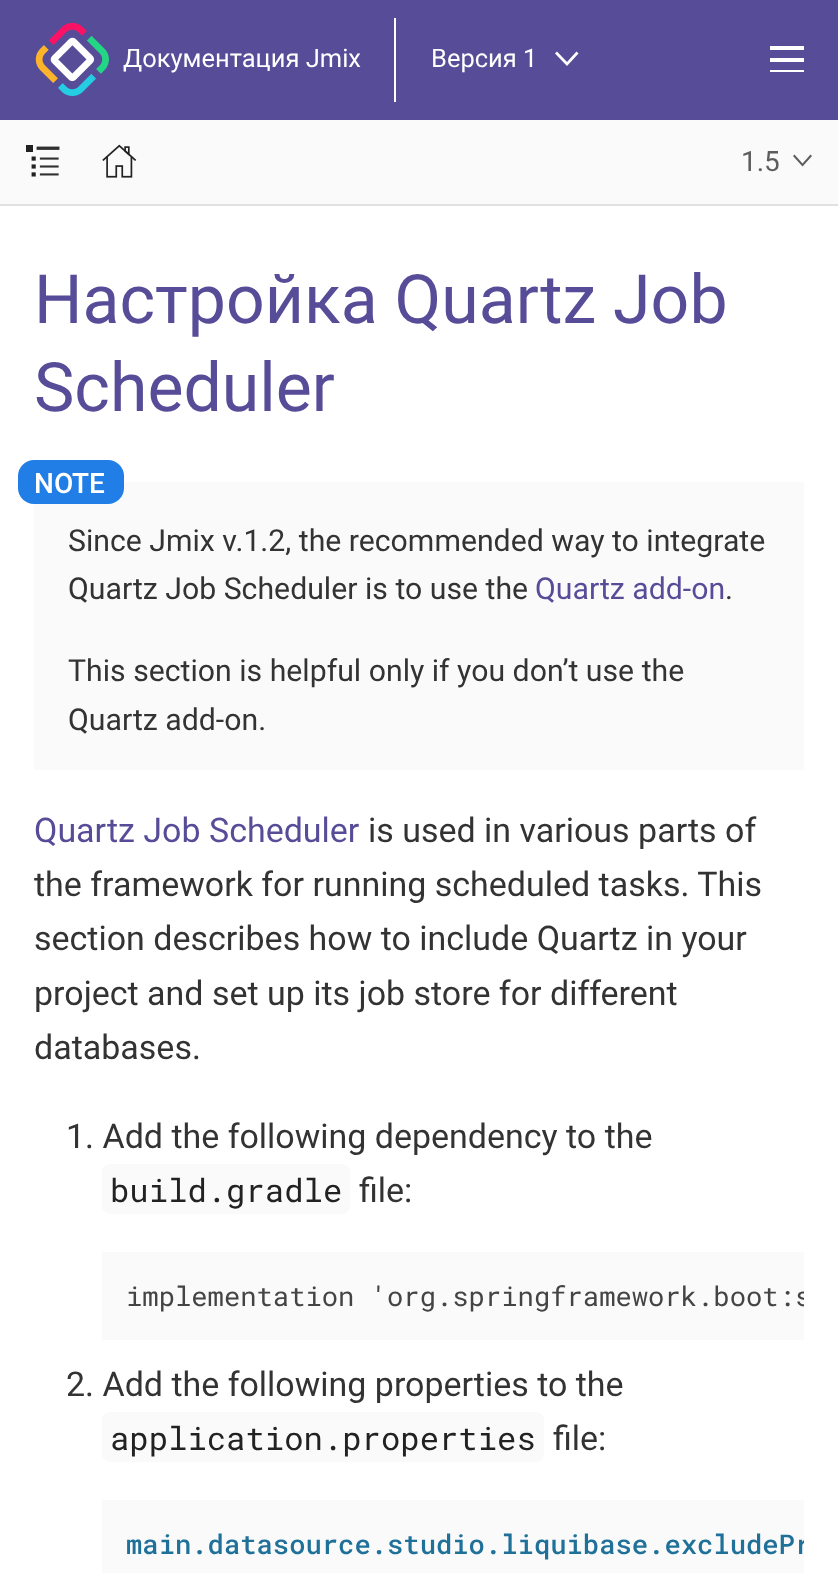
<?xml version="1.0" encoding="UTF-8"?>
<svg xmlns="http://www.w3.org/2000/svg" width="838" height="1573">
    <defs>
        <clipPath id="clip1"><rect x="102" y="1252" width="702" height="88"/></clipPath>
        <clipPath id="clip2"><rect x="102" y="1500" width="702" height="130"/></clipPath>
    </defs>
    <rect width="100%" height="100%" fill="#FFFFFF"/>
    <rect x="0" y="0" width="838" height="120" fill="#574C98"/>
    <image x="35" y="22" width="74" height="74" href="img_01.png"/>
    <text x="123" y="67" font-family="Roboto" font-size="25.5" fill="#FFFFFF">Документация Jmix</text>
    <rect x="394" y="18" width="2" height="84" fill="#FFFFFF"/>
    <text x="431" y="67" font-family="Roboto" font-size="25.5" fill="#FFFFFF">Версия 1</text>
    <path d="M 557 51.5 L 555 53.5 L 567 66 L 578.5 53.5 L 576.5 51.5 L 567 62 Z" fill="#FFFFFF"/>
    <rect x="770" y="46" width="34" height="4" fill="#FFFFFF"/>
    <rect x="770" y="58" width="34" height="4" fill="#FFFFFF"/>
    <rect x="770" y="70" width="34" height="2" fill="#FFFFFF"/>
    <rect x="0" y="204" width="838" height="2" fill="#E1E1E1"/>
    <rect x="0" y="120" width="838" height="84" fill="#FAFAFA"/>
    <image x="26" y="145" width="34" height="32" href="img_02.png"/>
    <image x="102" y="144" width="35" height="34" href="img_03.png"/>
    <path d="M 794.5 154.5 L 793 156 L 802.5 166.5 L 812 156 L 810.5 154.5 L 802.5 163.5 Z" fill="#5D5D5D"/>
    <text x="741" y="171" font-family="Roboto" font-size="28" fill="#5D5D5D">1.5</text>
    <text font-family="Roboto" font-size="68" fill="#574C98">
        <tspan x="34" y="323">Настройка Quartz Job</tspan>
        <tspan x="34" y="411">Scheduler</tspan>
    </text>
    <rect x="34" y="482" width="770" height="288" fill="#FAFAFA"/>
    <rect x="18" y="460" width="106" height="44" rx="16" fill="#217EE7"/>
    <text x="34" y="493" font-family="Roboto" font-size="28" font-weight="500" fill="#FFFFFF">NOTE</text>
    <text font-family="Roboto" font-size="30.25" fill="#333333">
        <tspan x="68" y="551">Since Jmix v.1.2, the recommended way to integrate</tspan>
        <tspan x="68" y="599">Quartz Job Scheduler is to use the</tspan>
    </text>
    <text x="535" y="599" font-family="Roboto" font-size="30.25" fill="#574C98">Quartz add-on</text>
    <text x="725" y="599" font-family="Roboto" font-size="30.25" fill="#333333">.</text>
    <text font-family="Roboto" font-size="30.25" fill="#333333">
        <tspan x="68" y="681">This section is helpful only if you don’t use the</tspan>
        <tspan x="68" y="730">Quartz add-on.</tspan>
    </text>
    <text x="34" y="842" font-family="Roboto" font-size="34" fill="#574C98">Quartz Job Scheduler</text>
    <text x="368" y="842" font-family="Roboto" font-size="34" fill="#333333">is used in various parts of</text>
    <text font-family="Roboto" font-size="34" fill="#333333">
        <tspan x="34" y="896">the framework for running scheduled tasks. This</tspan>
        <tspan x="34" y="950">section describes how to include Quartz in your</tspan>
        <tspan x="34" y="1005">project and set up its job store for different</tspan>
        <tspan x="34" y="1059">databases.</tspan>
    </text>
    <text x="66" y="1148" font-family="Roboto" font-size="34" fill="#333333">1. Add the following dependency to the</text>
    <rect x="102" y="1164" width="248" height="50" rx="8" fill="#FAFAFA"/>
    <text x="110" y="1202" font-family="Roboto Mono" font-size="32.25" fill="#222222">build.gradle</text>
    <text x="359" y="1202" font-family="Roboto" font-size="34" fill="#333333">file:</text>
    <rect x="102" y="1252" width="702" height="88" fill="#FAFAFA"/>
    <g clip-path="url(#clip1)">
        <text x="126" y="1306" font-family="Roboto Mono" font-size="27.2" fill="#444444">implementation 'org.springframework.boot:s</text>
    </g>
    <text x="66" y="1396" font-family="Roboto" font-size="34" fill="#333333">2. Add the following properties to the</text>
    <rect x="102" y="1412" width="442" height="50" rx="8" fill="#FAFAFA"/>
    <text x="110" y="1450" font-family="Roboto Mono" font-size="32.25" fill="#222222">application.properties</text>
    <text x="553" y="1450" font-family="Roboto" font-size="34" fill="#333333">file:</text>
    <rect x="102" y="1500" width="702" height="73" fill="#FAFAFA"/>
    <g clip-path="url(#clip2)">
        <text x="126" y="1554" font-family="Roboto Mono" font-size="27.2" font-weight="500" fill="#1F7199">main.datasource.studio.liquibase.excludePr</text>
    </g>
</svg>
